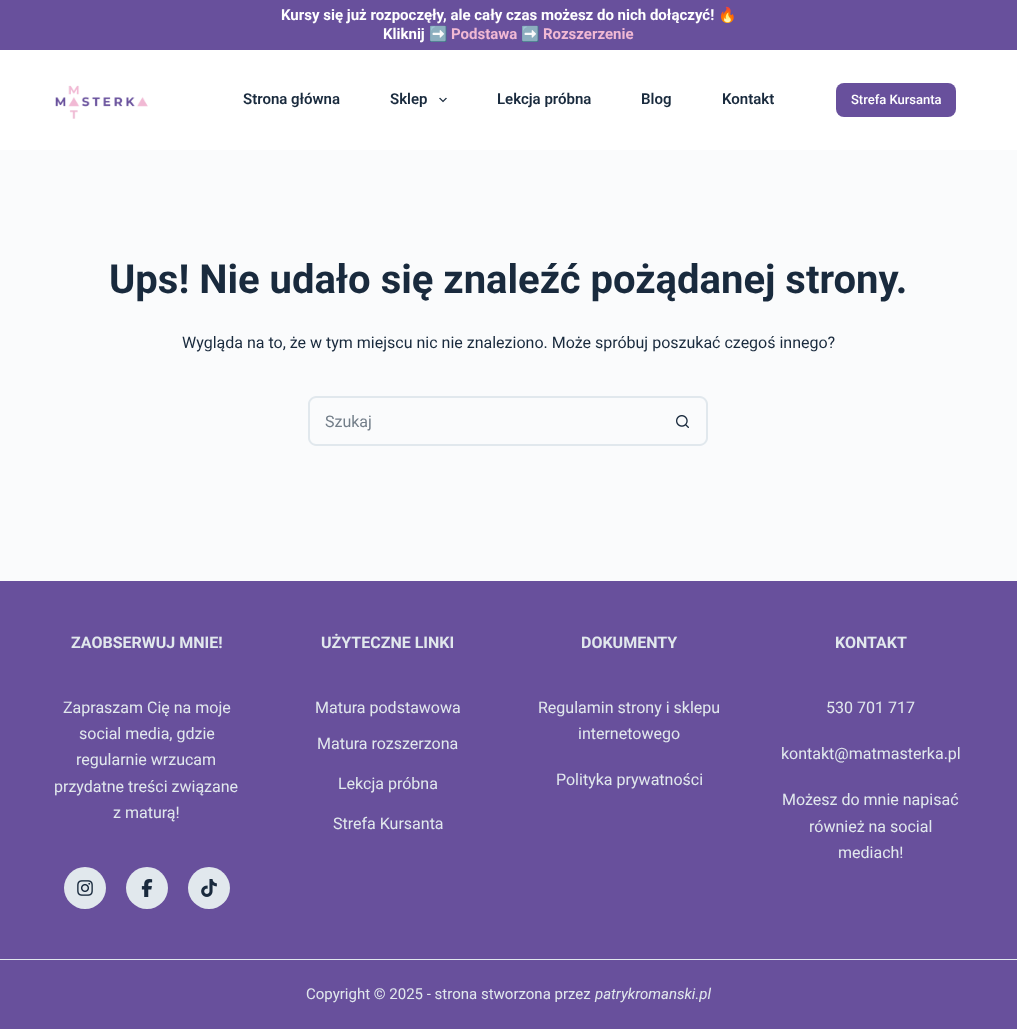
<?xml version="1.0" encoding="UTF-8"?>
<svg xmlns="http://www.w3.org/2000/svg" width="1017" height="1029">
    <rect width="100%" height="100%" fill="#FAFBFC"/>
    <rect x="0" y="0" width="1017" height="50" fill="#68509C"/>
    <text x="281" y="20" font-family="Roboto" font-size="15" font-weight="700" fill="#FFFFFF">Kursy się już rozpoczęły, ale cały czas możesz do nich dołączyć!</text>
    <text x="718" y="20" font-family="Noto Color Emoji" font-size="15" font-weight="700" fill="#FFFFFF">🔥</text>
    <text x="383" y="39" font-family="Roboto" font-size="15" font-weight="700" fill="#FFFFFF">Kliknij</text>
    <text x="429" y="39" font-family="Noto Color Emoji" font-size="15" font-weight="700" fill="#FFFFFF">➡️</text>
    <text x="451" y="39" font-family="Roboto" font-size="15" font-weight="700" fill="#F1B9D4">Podstawa</text>
    <text x="521" y="39" font-family="Noto Color Emoji" font-size="15" font-weight="700" fill="#FFFFFF">➡️</text>
    <text x="543" y="39" font-family="Roboto" font-size="15" font-weight="700" fill="#F1B9D4">Rozszerzenie</text>
    <rect x="0" y="50" width="1017" height="100" fill="#FFFFFF"/>
    <image x="55" y="85" width="93" height="34" href="img_01.png"/>
    <text x="243" y="104" font-family="Roboto" font-size="15" font-weight="600" fill="#192A3D">Strona główna</text>
    <text x="390" y="104" font-family="Roboto" font-size="15" font-weight="600" fill="#192A3D">Sklep</text>
    <image x="439" y="97" width="8" height="6" href="img_02.png"/>
    <text x="497" y="104" font-family="Roboto" font-size="15" font-weight="600" fill="#192A3D">Lekcja próbna</text>
    <text x="641" y="104" font-family="Roboto" font-size="15" font-weight="600" fill="#192A3D">Blog</text>
    <text x="722" y="104" font-family="Roboto" font-size="15" font-weight="600" fill="#192A3D">Kontakt</text>
    <rect x="836" y="83" width="120" height="34" rx="8" fill="#68509C"/>
    <text x="851" y="104" font-family="Roboto" font-size="13" font-weight="500" fill="#FFFFFF">Strefa Kursanta</text>
    <text x="109" y="293" font-family="Roboto" font-size="40" font-weight="700" fill="#192A3D">Ups! Nie udało się znaleźć pożądanej strony.</text>
    <text x="182" y="348" font-family="Roboto" font-size="16" fill="#192A3D">Wygląda na to, że w tym miejscu nic nie znaleziono. Może spróbuj poszukać czegoś innego?</text>
    <path d="M 316 396 H 658 V 446 H 316 C 312 446 308 442 308 438 V 404 C 308 400 312 396 316 396 Z M 316 398 H 658 V 444 H 316 C 313 444 310 441 310 438 V 404 C 310 401 313 398 316 398 Z" fill="#E1E8ED" fill-rule="evenodd"/>
    <text x="325" y="427" font-family="Roboto" font-size="16" fill="#737E89">Szukaj</text>
    <path d="M 658 396 H 700 C 704 396 708 400 708 404 V 438 C 708 442 704 446 700 446 H 658 Z M 658 398 H 700 C 703 398 706 401 706 404 V 438 C 706 441 703 444 700 444 H 658 Z" fill="#E1E8ED" fill-rule="evenodd"/>
    <image x="676" y="415" width="13" height="13" href="img_03.png"/>
    <rect x="0" y="581" width="1017" height="448" fill="#68509C"/>
    <text x="71" y="648" font-family="Roboto" font-size="16" font-weight="700" fill="#E1E8ED">ZAOBSERWUJ MNIE!</text>
    <text x="63" y="713" font-family="Roboto" font-size="16" fill="#E1E8ED">Zapraszam Cię na moje</text>
    <text x="79" y="739" font-family="Roboto" font-size="16" fill="#E1E8ED">social media, gdzie</text>
    <text x="76" y="765" font-family="Roboto" font-size="16" fill="#E1E8ED">regularnie wrzucam</text>
    <text x="54" y="792" font-family="Roboto" font-size="16" fill="#E1E8ED">przydatne treści związane</text>
    <text x="113" y="818" font-family="Roboto" font-size="16" fill="#E1E8ED">z maturą!</text>
    <circle cx="85" cy="888" r="21" fill="#E1E8ED"/>
    <image x="77" y="880" width="16" height="16" href="img_04.png"/>
    <circle cx="147" cy="888" r="21" fill="#E1E8ED"/>
    <image x="141" y="879" width="12" height="18" href="img_05.png"/>
    <circle cx="209" cy="888" r="21" fill="#E1E8ED"/>
    <image x="201" y="879" width="16" height="18" href="img_06.png"/>
    <text x="321" y="648" font-family="Roboto" font-size="16" font-weight="700" fill="#E1E8ED">UŻYTECZNE LINKI</text>
    <text x="315" y="713" font-family="Roboto" font-size="16" fill="#E1E8ED">Matura podstawowa</text>
    <text x="317" y="749" font-family="Roboto" font-size="16" fill="#E1E8ED">Matura rozszerzona</text>
    <text x="338" y="789" font-family="Roboto" font-size="16" fill="#E1E8ED">Lekcja próbna</text>
    <text x="333" y="829" font-family="Roboto" font-size="16" fill="#E1E8ED">Strefa Kursanta</text>
    <text x="581" y="648" font-family="Roboto" font-size="16" font-weight="700" fill="#E1E8ED">DOKUMENTY</text>
    <text x="538" y="713" font-family="Roboto" font-size="16" fill="#E1E8ED">Regulamin strony i sklepu</text>
    <text x="578" y="739" font-family="Roboto" font-size="16" fill="#E1E8ED">internetowego</text>
    <text x="556" y="785" font-family="Roboto" font-size="16" fill="#E1E8ED">Polityka prywatności</text>
    <text x="835" y="648" font-family="Roboto" font-size="16" font-weight="700" fill="#E1E8ED">KONTAKT</text>
    <text x="826" y="713" font-family="Roboto" font-size="16" fill="#E1E8ED">530 701 717</text>
    <text x="781" y="759" font-family="Roboto" font-size="16" fill="#E1E8ED">kontakt@matmasterka.pl</text>
    <text x="782" y="805" font-family="Roboto" font-size="16" fill="#E1E8ED">Możesz do mnie napisać</text>
    <text x="809" y="832" font-family="Roboto" font-size="16" fill="#E1E8ED">również na social</text>
    <text x="838" y="858" font-family="Roboto" font-size="16" fill="#E1E8ED">mediach!</text>
    <rect x="0" y="959" width="1017" height="1" fill="#E1E8ED"/>
    <text x="306" y="999" font-family="Roboto" font-size="15" fill="#E1E8ED">Copyright © 2025 - strona stworzona przez</text>
    <text x="595" y="999" font-family="Roboto" font-size="15" font-style="italic" fill="#E1E8ED">patrykromanski.pl</text>
</svg>
